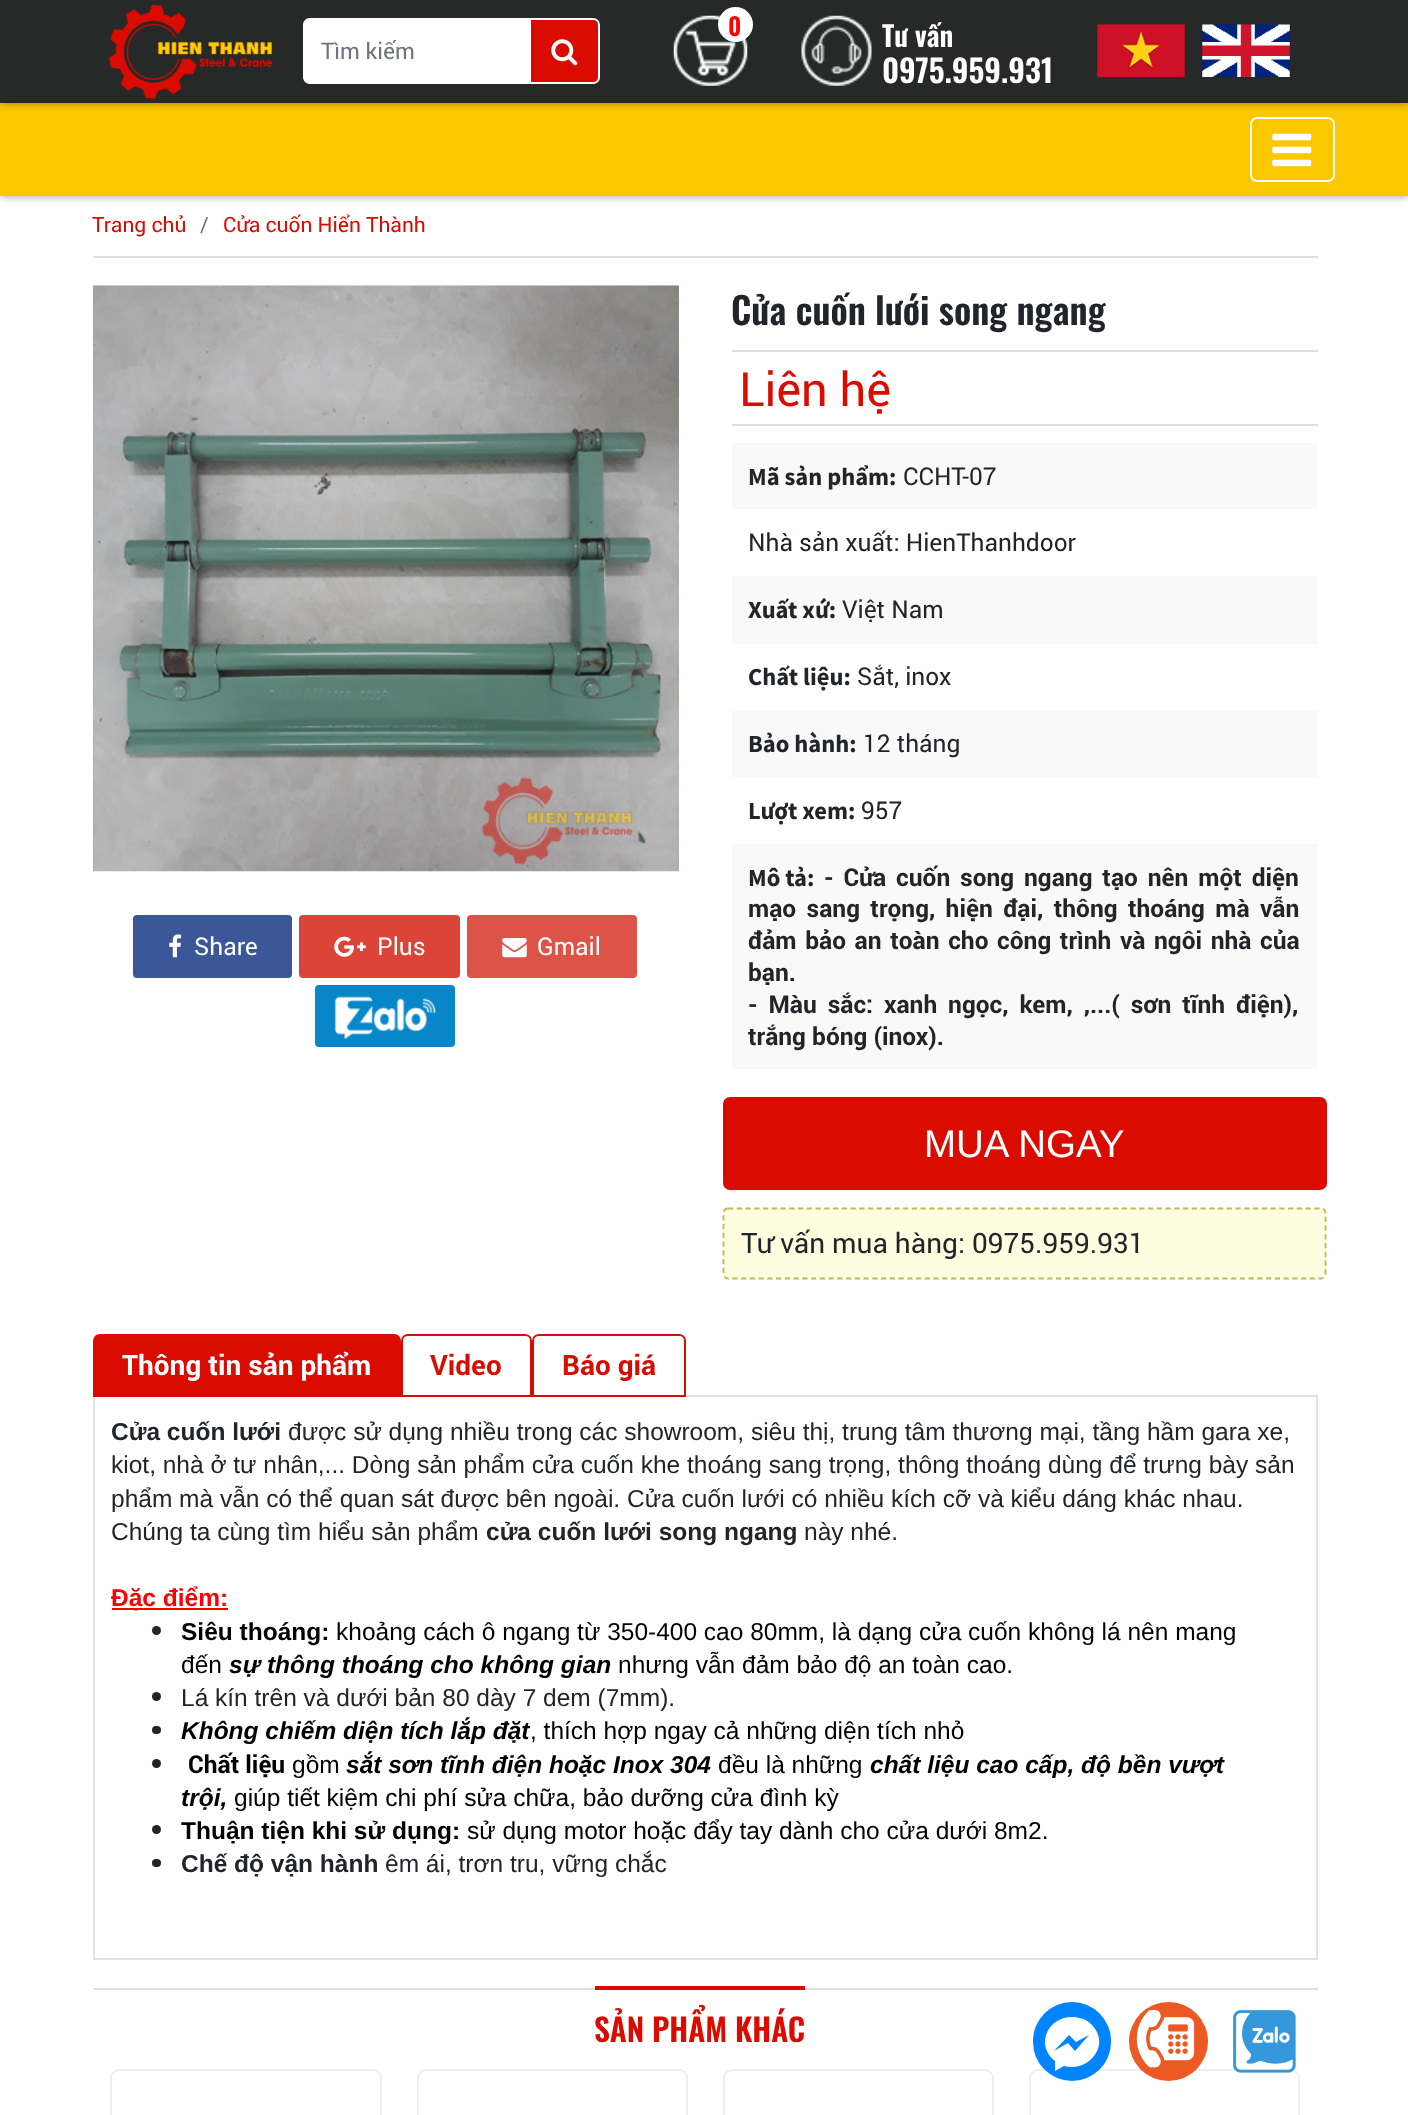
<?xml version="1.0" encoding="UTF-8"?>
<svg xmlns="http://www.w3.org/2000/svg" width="1408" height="2115">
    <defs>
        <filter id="blur1" x="-50%" y="-200%" width="200%" height="500%"><feGaussianBlur stdDeviation="4.5"/></filter>
    </defs>
    <rect width="100%" height="100%" fill="#FFFFFF"/>
    <rect x="0" y="103" width="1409" height="93" fill="#000000" fill-opacity="0.4" filter="url(#blur1)"/>
    <rect x="0" y="103" width="1408" height="93" fill="#FBC800"/>
    <rect x="0" y="0" width="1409" height="103" fill="#000000" fill-opacity="0.4" filter="url(#blur1)"/>
    <rect x="0" y="0" width="1408" height="103" fill="#272828"/>
    <image x="108" y="4" width="165" height="96" href="img_01.png"/>
    <path d="M 310 18 H 530 V 84 H 310 C 306 84 303 81 303 77 V 25 C 303 21 306 18 310 18 Z" fill="#FFFFFF"/>
    <text x="321" y="59" font-family="Roboto" font-size="22.75" fill="#6C757D">Tìm kiếm</text>
    <path d="M 530 19 H 593 C 596.5 19 599 21.5 599 25 V 77 C 599 80.5 596.5 83 593 83 H 530 Z" fill="#DA0B00" stroke="#FFFFFF" stroke-width="2"/>
    <image x="551" y="39" width="27" height="27" href="img_02.png"/>
    <image x="673" y="15" width="75" height="71" href="img_03.png"/>
    <circle cx="735.5" cy="24.5" r="17.5" fill="#FFFFFF"/>
    <text x="728" y="36" font-family="Oswald" font-size="24.5" font-weight="600" fill="#FF0000">0</text>
    <image x="801" y="15" width="71" height="71" href="img_04.png"/>
    <text x="882" y="47" font-family="Oswald" font-size="28" font-weight="600" fill="#FFFFFF">Tư vấn</text>
    <text x="882" y="83" font-family="Oswald" font-size="31.5" font-weight="600" fill="#FFFFFF">0975.959.931</text>
    <image x="1097" y="24" width="88" height="53" href="img_05.png"/>
    <image x="1202" y="24" width="88" height="53" href="img_06.png"/>
    <rect x="1251" y="118" width="83" height="63" rx="6" fill="none" stroke="#FFFFFF" stroke-width="2"/>
    <image x="1272" y="133" width="40" height="34" href="img_07.png"/>
    <rect x="93" y="256" width="1225" height="2" fill="#DFDFDF"/>
    <text x="92" y="232" font-family="Roboto" font-size="21" fill="#DA0B00">Trang chủ</text>
    <text x="200" y="232" font-family="Roboto" font-size="21" fill="#6C757D">/</text>
    <text x="223" y="232" font-family="Roboto" font-size="21" fill="#DA0B00">Cửa cuốn Hiển Thành</text>
    <image x="92" y="285" width="587" height="587" href="img_08.png"/>
    <rect x="133" y="915" width="159" height="63" rx="4" fill="#3A5899"/>
    <image x="169" y="934" width="13" height="24" href="img_09.png"/>
    <text x="194" y="955" font-family="Roboto" font-size="24.5" fill="#FFFFFF">Share</text>
    <rect x="299" y="915" width="161" height="63" rx="4" fill="#DB4437"/>
    <image x="334" y="936" width="32" height="21" href="img_10.png"/>
    <text x="377" y="955" font-family="Roboto" font-size="24.5" fill="#FFFFFF">Plus</text>
    <rect x="467" y="915" width="170" height="63" rx="4" fill="#DD5348"/>
    <image x="502" y="938" width="25" height="20" href="img_11.png"/>
    <text x="537" y="955" font-family="Roboto" font-size="24.5" fill="#FFFFFF">Gmail</text>
    <rect x="315" y="985" width="140" height="62" rx="4" fill="#0787CA"/>
    <image x="334" y="996" width="102" height="43" href="img_12.png"/>
    <text x="731" y="325" font-family="Oswald" font-size="36.75" font-weight="600" fill="#212529">Cửa cuốn lưới song ngang</text>
    <rect x="732" y="350" width="586" height="2" fill="#DFDFDF"/>
    <rect x="732" y="424" width="586" height="2" fill="#DFDFDF"/>
    <text x="739" y="406" font-family="Roboto" font-size="47" fill="#DA0B00">Liên hệ</text>
    <rect x="732" y="443" width="586" height="66" fill="#F9F9F9"/>
    <text x="748" y="485" font-family="Source Sans Pro" font-size="24.5" font-weight="700" fill="#212529">Mã sản phẩm:</text>
    <text x="903" y="485" font-family="Roboto" font-size="24.5" fill="#212529">CCHT-07</text>
    <text x="748" y="551" font-family="Roboto" font-size="24.5" fill="#212529">Nhà sản xuất: HienThanhdoor</text>
    <rect x="732" y="576" width="586" height="68" fill="#F9F9F9"/>
    <text x="748" y="618" font-family="Source Sans Pro" font-size="24.5" font-weight="700" fill="#212529">Xuất xứ:</text>
    <text x="842" y="618" font-family="Roboto" font-size="24.5" fill="#212529">Việt Nam</text>
    <text x="748" y="685" font-family="Source Sans Pro" font-size="24.5" font-weight="700" fill="#212529">Chất liệu:</text>
    <text x="857" y="685" font-family="Roboto" font-size="24.5" fill="#212529">Sắt, inox</text>
    <rect x="732" y="711" width="586" height="66" fill="#F9F9F9"/>
    <text x="748" y="752" font-family="Source Sans Pro" font-size="24.5" font-weight="700" fill="#212529">Bảo hành:</text>
    <text x="863" y="752" font-family="Roboto" font-size="24.5" fill="#212529">12 tháng</text>
    <text x="748" y="819" font-family="Source Sans Pro" font-size="24.5" font-weight="700" fill="#212529">Lượt xem:</text>
    <text x="861" y="819" font-family="Roboto" font-size="24.5" fill="#212529">957</text>
    <rect x="732" y="844" width="586" height="225" fill="#F9F9F9"/>
    <text x="748" y="886" font-family="Source Sans Pro" font-size="24.5" font-weight="700" fill="#212529">Mô tả:</text>
    <text x="824" y="886" word-spacing="3.75" font-family="Roboto" font-size="24.5" font-weight="700" fill="#212529">- Cửa cuốn song ngang tạo nên một diện</text>
    <text font-family="Roboto" font-size="24.5" font-weight="700" fill="#212529">
        <tspan x="748" y="917" word-spacing="4.25">mạo sang trọng, hiện đại, thông thoáng mà vẫn</tspan>
        <tspan x="748" y="949" word-spacing="2.5">đảm bảo an toàn cho công trình và ngôi nhà của</tspan>
        <tspan x="748" y="981">bạn.</tspan>
        <tspan x="748" y="1013" word-spacing="4.75">- Màu sắc: xanh ngọc, kem, ,...( sơn tĩnh điện),</tspan>
        <tspan x="748" y="1045">trắng bóng (inox).</tspan>
    </text>
    <rect x="723" y="1097" width="604" height="93" rx="7" fill="#DA0B00"/>
    <text x="924" y="1157" font-family="Liberation Sans" font-size="38.5" fill="#FFFFFF">MUA NGAY</text>
    <rect x="723" y="1208" width="604" height="71" rx="5" fill="#FFFDDF"/>
    <path d="M 728 1208.5 H 1321 C 1323.5 1208.5 1325.5 1210.5 1325.5 1213 V 1274 C 1325.5 1276.5 1323.5 1278.5 1321 1278.5 H 728 C 725.5 1278.5 723.5 1276.5 723.5 1274 V 1213 C 723.5 1210.5 725.5 1208.5 728 1208.5 Z" fill="none" stroke="#BBBA59" stroke-width="1.8" stroke-dasharray="5.25 3.5"/>
    <text x="741" y="1253" font-family="Roboto" font-size="28" fill="#212529">Tư vấn mua hàng: 0975.959.931</text>
    <rect x="686" y="1395" width="632" height="2" fill="#DEE2E6"/>
    <path d="M 100 1335 H 394 C 397.5 1335 400 1337.5 400 1341 V 1396 H 94 V 1341 C 94 1337.5 96.5 1335 100 1335 Z" fill="#DA0B00" stroke="#DA0B00" stroke-width="2"/>
    <text x="122" y="1375" font-family="Roboto" font-size="28" font-weight="700" fill="#FFFFFF">Thông tin sản phẩm</text>
    <path d="M 408 1335 H 525 C 528.5 1335 531 1337.5 531 1341 V 1396 H 402 V 1341 C 402 1337.5 404.5 1335 408 1335 Z" fill="none" stroke="#DA0B00" stroke-width="2"/>
    <text x="430" y="1375" font-family="Roboto" font-size="28" font-weight="700" fill="#DA0B00">Video</text>
    <path d="M 539 1335 H 679 C 682.5 1335 685 1337.5 685 1341 V 1396 H 533 V 1341 C 533 1337.5 535.5 1335 539 1335 Z" fill="none" stroke="#DA0B00" stroke-width="2"/>
    <text x="562" y="1375" font-family="Roboto" font-size="28" font-weight="700" fill="#DA0B00">Báo giá</text>
    <rect x="1316" y="1397" width="2" height="563" fill="#DEE2E6"/>
    <rect x="93" y="1958" width="1225" height="2" fill="#DEE2E6"/>
    <rect x="93" y="1397" width="2" height="563" fill="#DEE2E6"/>
    <text x="111" y="1440" font-family="Liberation Sans" font-size="24.5" font-weight="700" fill="#212529">Cửa cuốn lưới</text>
    <text x="288" y="1440" font-family="Liberation Sans" font-size="24.5" fill="#212529">được sử dụng nhiều trong các showroom, siêu thị, trung tâm thương mại, tầng hầm gara xe,</text>
    <text font-family="Liberation Sans" font-size="24.5" fill="#212529">
        <tspan x="111" y="1473">kiot, nhà ở tư nhân,... Dòng sản phẩm cửa cuốn khe thoáng sang trọng, thông thoáng dùng để trưng bày sản</tspan>
        <tspan x="111" y="1507">phẩm mà vẫn có thể quan sát được bên ngoài. Cửa cuốn lưới có nhiều kích cỡ và kiểu dáng khác nhau.</tspan>
        <tspan x="111" y="1540">Chúng ta cùng tìm hiểu sản phẩm</tspan>
    </text>
    <text x="486" y="1540" font-family="Liberation Sans" font-size="24.5" font-weight="700" fill="#212529">cửa cuốn lưới song ngang</text>
    <text x="804" y="1540" font-family="Liberation Sans" font-size="24.5" fill="#212529">này nhé.</text>
    <rect x="112" y="1608" width="116" height="2" fill="#FF0000"/>
    <text x="111" y="1606" font-family="Liberation Sans" font-size="24.5" font-weight="700" fill="#FF0000">Đặc điểm:</text>
    <circle cx="156.5" cy="1630.5" r="4.5" fill="#212529"/>
    <text x="181" y="1640" font-family="Liberation Sans" font-size="24.5" font-weight="700" fill="#000000">Siêu thoáng:</text>
    <text x="336" y="1640" font-family="Liberation Sans" font-size="24.5" fill="#000000">khoảng cách ô ngang từ 350-400 cao 80mm, là dạng cửa cuốn không lá nên mang</text>
    <text x="181" y="1673" font-family="Liberation Sans" font-size="24.5" fill="#000000">đến</text>
    <text x="229" y="1673" font-family="Liberation Sans" font-size="24.5" font-weight="700" font-style="italic" fill="#000000">sự thông thoáng cho không gian</text>
    <text x="618" y="1673" font-family="Liberation Sans" font-size="24.5" fill="#000000">nhưng vẫn đảm bảo độ an toàn cao.</text>
    <circle cx="156.5" cy="1696.5" r="4.5" fill="#212529"/>
    <text x="181" y="1706" font-family="Liberation Sans" font-size="24.5" fill="#212529">Lá kín trên và dưới bản 80 dày 7 dem (7mm).</text>
    <rect x="152" y="1726" width="9" height="8" rx="4" fill="#212529"/>
    <text x="181" y="1739" font-family="Liberation Sans" font-size="24.5" font-weight="700" font-style="italic" fill="#000000">Không chiếm diện tích lắp đặt</text>
    <text x="530" y="1739" font-family="Liberation Sans" font-size="24.5" fill="#000000">, thích hợp ngay cả những diện tích nhỏ</text>
    <circle cx="156.5" cy="1763.5" r="4.5" fill="#212529"/>
    <text x="188" y="1773" font-family="Roboto" font-size="24.5" font-weight="700" fill="#000000">Chất liệu</text>
    <text x="292" y="1773" font-family="Liberation Sans" font-size="24.5" fill="#000000">gồm</text>
    <text x="346" y="1773" font-family="Liberation Sans" font-size="24.5" font-weight="700" font-style="italic" fill="#000000">sắt sơn tĩnh điện hoặc Inox 304</text>
    <text x="718" y="1773" font-family="Liberation Sans" font-size="24.5" fill="#000000">đều là những</text>
    <text x="870" y="1773" font-family="Liberation Sans" font-size="24.5" font-weight="700" font-style="italic" fill="#000000">chất liệu cao cấp, độ bền vượt</text>
    <text x="181" y="1806" font-family="Liberation Sans" font-size="24.5" font-weight="700" font-style="italic" fill="#000000">trội,</text>
    <text x="234" y="1806" font-family="Liberation Sans" font-size="24.5" fill="#000000">giúp tiết kiệm chi phí sửa chữa, bảo dưỡng cửa đình kỳ</text>
    <circle cx="156.5" cy="1829.5" r="4.5" fill="#212529"/>
    <text x="181" y="1839" font-family="Liberation Sans" font-size="24.5" font-weight="700" fill="#000000">Thuận tiện khi sử dụng:</text>
    <text x="467" y="1839" font-family="Liberation Sans" font-size="24.5" fill="#000000">sử dụng motor hoặc đẩy tay dành cho cửa dưới 8m2.</text>
    <rect x="152" y="1859" width="9" height="8" rx="4" fill="#212529"/>
    <text x="181" y="1872" font-family="Liberation Sans" font-size="24.5" font-weight="700" fill="#212529">Chế độ vận hành</text>
    <text x="385" y="1872" font-family="Liberation Sans" font-size="24.5" fill="#212529">êm ái, trơn tru, vững chắc</text>
    <rect x="93" y="1988" width="1225" height="2" fill="#DFDFDF"/>
    <rect x="595" y="1986" width="210" height="4" fill="#DA0B00"/>
    <text x="594" y="2042" font-family="Oswald" font-size="31.5" font-weight="600" fill="#DA0B00">SẢN PHẨM KHÁC</text>
    <rect x="111" y="2070" width="270" height="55" rx="8" fill="none" stroke="#EEEEEE" stroke-width="2"/>
    <rect x="418" y="2070" width="269" height="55" rx="8" fill="none" stroke="#EEEEEE" stroke-width="2"/>
    <rect x="724" y="2070" width="269" height="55" rx="8" fill="none" stroke="#EEEEEE" stroke-width="2"/>
    <rect x="1030" y="2070" width="269" height="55" rx="8" fill="none" stroke="#EEEEEE" stroke-width="2"/>
    <rect x="1033" y="2002" width="78" height="79" rx="39" fill="#0084FF"/>
    <path d="M 1072 2017 C 1047 2017 1035 2046 1055 2061 V 2071 L 1064 2066 C 1089 2073 1112 2044 1091 2024 C 1086 2019 1079 2017 1072 2017 Z M 1075 2051 L 1068 2043 L 1054 2051 L 1069 2035 L 1076 2042 L 1089 2035 Z" fill="#FFFFFF" fill-rule="evenodd"/>
    <circle cx="1168.5" cy="2041.5" r="39.5" fill="#EC5923"/>
    <image x="1136" y="2010" width="59" height="58" href="img_13.png"/>
    <image x="1232" y="2010" width="64" height="63" href="img_14.png"/>
</svg>
